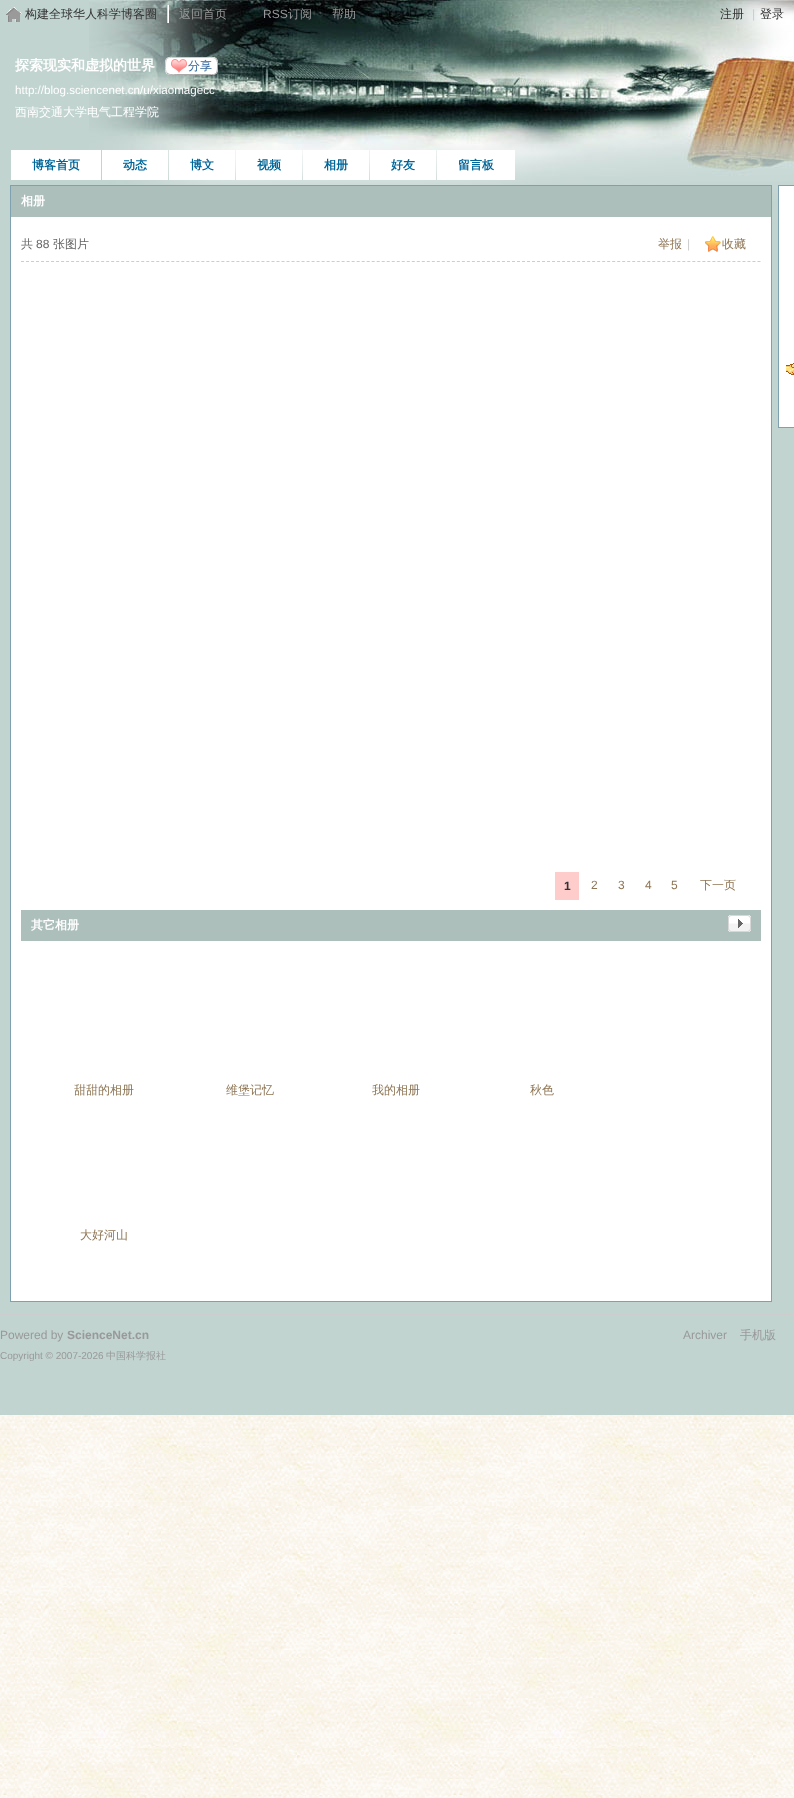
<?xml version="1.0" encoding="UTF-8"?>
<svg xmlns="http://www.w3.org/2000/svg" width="794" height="1798">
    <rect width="100%" height="100%" fill="#FFFFFF"/>
    <image x="0" y="1415" width="794" height="383" href="img_01.png"/>
    <rect x="0" y="0" width="794" height="1415" fill="#C1D4D0"/>
    <image x="89" y="0" width="705" height="201" href="img_02.png"/>
    <image x="5" y="7" width="17" height="15" href="img_03.png"/>
    <rect x="168" y="5" width="1" height="18" fill="#FFFFFF"/>
    <rect x="167" y="5" width="1" height="18" fill="#D5D5D5"/>
    <text x="25" y="18" font-family="WenQuanYi Zen Hei" font-size="12" font-weight="500" fill="#333333">构建全球华人科学博客圈</text>
    <text x="179" y="18" font-family="WenQuanYi Zen Hei" font-size="12" font-weight="500" fill="#999999">返回首页</text>
    <text x="263" y="18" font-family="Liberation Sans" font-size="12" fill="#999999">RSS</text>
    <text x="288" y="18" font-family="WenQuanYi Zen Hei" font-size="12" font-weight="500" fill="#999999">订阅</text>
    <text x="332" y="18" font-family="WenQuanYi Zen Hei" font-size="12" font-weight="500" fill="#999999">帮助</text>
    <text x="720" y="18" font-family="WenQuanYi Zen Hei" font-size="12" font-weight="500" fill="#333333">注册</text>
    <text x="752" y="18" font-family="Liberation Sans" font-size="12" fill="#CCCCCC">|</text>
    <text x="760" y="18" font-family="WenQuanYi Zen Hei" font-size="12" font-weight="500" fill="#333333">登录</text>
    <text x="15" y="70" font-family="WenQuanYi Zen Hei" font-size="14" font-weight="700" fill="#FFFFFF">探索现实和虚拟的世界</text>
    <rect x="165" y="57" width="53" height="18" rx="5" fill="#FFFFFF"/>
    <image x="171" y="59" width="16" height="14" href="img_04.png"/>
    <path d="M 216 59 C 218 61 217.5 64 217.5 67 C 217.5 76 214.5 74.5 206 74.5 H 177 C 175 74.5 169.5 75.5 167 73" fill="none" stroke="#A9A9A9"/>
    <path d="M 167 73 C 165 71 165.5 68 165.5 65 C 165.5 56 168.5 57.5 177 57.5 H 206 C 208 57.5 213.5 56.5 216 59" fill="none" stroke="#CCCCCC"/>
    <text x="188" y="70" font-family="WenQuanYi Zen Hei" font-size="12" font-weight="500" fill="#336699">分享</text>
    <text x="15" y="94" font-family="Liberation Sans" font-size="11.6" fill="#FFFFFF">http://blog.sciencenet.cn/u/xiaomagecc</text>
    <text x="15" y="116" font-family="WenQuanYi Zen Hei" font-size="12" font-weight="500" fill="#FFFFFF">西南交通大学电气工程学院</text>
    <rect x="11" y="150" width="90" height="30" fill="#FFFFFF"/>
    <text x="32" y="169" font-family="WenQuanYi Zen Hei" font-size="12" font-weight="700" fill="#006699">博客首页</text>
    <rect x="102" y="150" width="66" height="30" fill="#FFFFFF"/>
    <text x="123" y="169" font-family="WenQuanYi Zen Hei" font-size="12" font-weight="700" fill="#006699">动态</text>
    <rect x="169" y="150" width="66" height="30" fill="#FFFFFF"/>
    <text x="190" y="169" font-family="WenQuanYi Zen Hei" font-size="12" font-weight="700" fill="#006699">博文</text>
    <rect x="236" y="150" width="66" height="30" fill="#FFFFFF"/>
    <text x="257" y="169" font-family="WenQuanYi Zen Hei" font-size="12" font-weight="700" fill="#006699">视频</text>
    <rect x="303" y="150" width="66" height="30" fill="#FFFFFF"/>
    <text x="324" y="169" font-family="WenQuanYi Zen Hei" font-size="12" font-weight="700" fill="#006699">相册</text>
    <rect x="370" y="150" width="66" height="30" fill="#FFFFFF"/>
    <text x="391" y="169" font-family="WenQuanYi Zen Hei" font-size="12" font-weight="700" fill="#006699">好友</text>
    <rect x="437" y="150" width="78" height="30" fill="#FFFFFF"/>
    <text x="458" y="169" font-family="WenQuanYi Zen Hei" font-size="12" font-weight="700" fill="#006699">留言板</text>
    <rect x="11" y="217" width="760" height="1084" fill="#FFFFFF"/>
    <rect x="10.5" y="185.5" width="761" height="1116" fill="none" stroke="#7DA1B1"/>
    <rect x="11" y="186" width="760" height="31" fill="#ACBFBB"/>
    <text x="21" y="205" font-family="WenQuanYi Zen Hei" font-size="12" font-weight="700" fill="#FFFFFF">相册</text>
    <path d="M 21 261.5 H 761" fill="none" stroke="#CDCDCD" stroke-dasharray="3 2.01"/>
    <text x="21" y="248" font-family="WenQuanYi Zen Hei" font-size="12" font-weight="500" fill="#666666">共</text>
    <text x="36" y="248" font-family="Liberation Sans" font-size="12" fill="#666666">88</text>
    <text x="53" y="248" font-family="WenQuanYi Zen Hei" font-size="12" font-weight="500" fill="#666666">张图片</text>
    <text x="658" y="248" font-family="WenQuanYi Zen Hei" font-size="12" font-weight="500" fill="#8E7554">举报</text>
    <text x="687" y="248" font-family="Liberation Sans" font-size="12" fill="#CCCCCC">|</text>
    <image x="705" y="236" width="16" height="16" href="img_05.png"/>
    <text x="722" y="248" font-family="WenQuanYi Zen Hei" font-size="12" font-weight="500" fill="#8E7554">收藏</text>
    <rect x="555" y="872" width="24" height="28" fill="#FFCCCC"/>
    <text x="564" y="890" font-family="Liberation Sans" font-size="12" font-weight="700" fill="#333333">1</text>
    <text x="591" y="889" font-family="Liberation Sans" font-size="12" fill="#8E7554">2</text>
    <text x="618" y="889" font-family="Liberation Sans" font-size="12" fill="#8E7554">3</text>
    <text x="645" y="889" font-family="Liberation Sans" font-size="12" fill="#8E7554">4</text>
    <text x="671" y="889" font-family="Liberation Sans" font-size="12" fill="#8E7554">5</text>
    <text x="700" y="889" font-family="WenQuanYi Zen Hei" font-size="12" font-weight="500" fill="#8E7554">下一页</text>
    <rect x="21" y="910" width="740" height="31" fill="#ACBFBB"/>
    <text x="31" y="929" font-family="WenQuanYi Zen Hei" font-size="12" font-weight="700" fill="#FFFFFF">其它相册</text>
    <image x="728" y="915" width="23" height="17" href="img_06.png"/>
    <text x="74" y="1094" font-family="WenQuanYi Zen Hei" font-size="12" font-weight="500" fill="#8E7554">甜甜的相册</text>
    <text x="226" y="1094" font-family="WenQuanYi Zen Hei" font-size="12" font-weight="500" fill="#8E7554">维堡记忆</text>
    <text x="372" y="1094" font-family="WenQuanYi Zen Hei" font-size="12" font-weight="500" fill="#8E7554">我的相册</text>
    <text x="530" y="1094" font-family="WenQuanYi Zen Hei" font-size="12" font-weight="500" fill="#8E7554">秋色</text>
    <text x="80" y="1239" font-family="WenQuanYi Zen Hei" font-size="12" font-weight="500" fill="#8E7554">大好河山</text>
    <rect x="778.5" y="185.5" width="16" height="242" fill="#FFFFFF" stroke="#7DA1B1"/>
    <image x="786" y="363" width="8" height="12" href="img_07.png"/>
    <rect x="0" y="1314" width="794" height="1" fill="#CDCDCD"/>
    <text x="0" y="1339" font-family="Liberation Sans" font-size="12" fill="#999999">Powered by</text>
    <text x="67" y="1339" font-family="Liberation Sans" font-size="12" font-weight="700" fill="#999999">ScienceNet.cn</text>
    <text x="0" y="1359" font-family="Liberation Sans" font-size="10" fill="#999999">Copyright © 2007-2026</text>
    <text x="106" y="1359" font-family="WenQuanYi Zen Hei" font-size="10" font-weight="500" fill="#999999">中国科学报社</text>
    <text x="683" y="1339" font-family="Liberation Sans" font-size="12" fill="#999999">Archiver</text>
    <text x="740" y="1339" font-family="WenQuanYi Zen Hei" font-size="12" font-weight="500" fill="#999999">手机版</text>
</svg>
